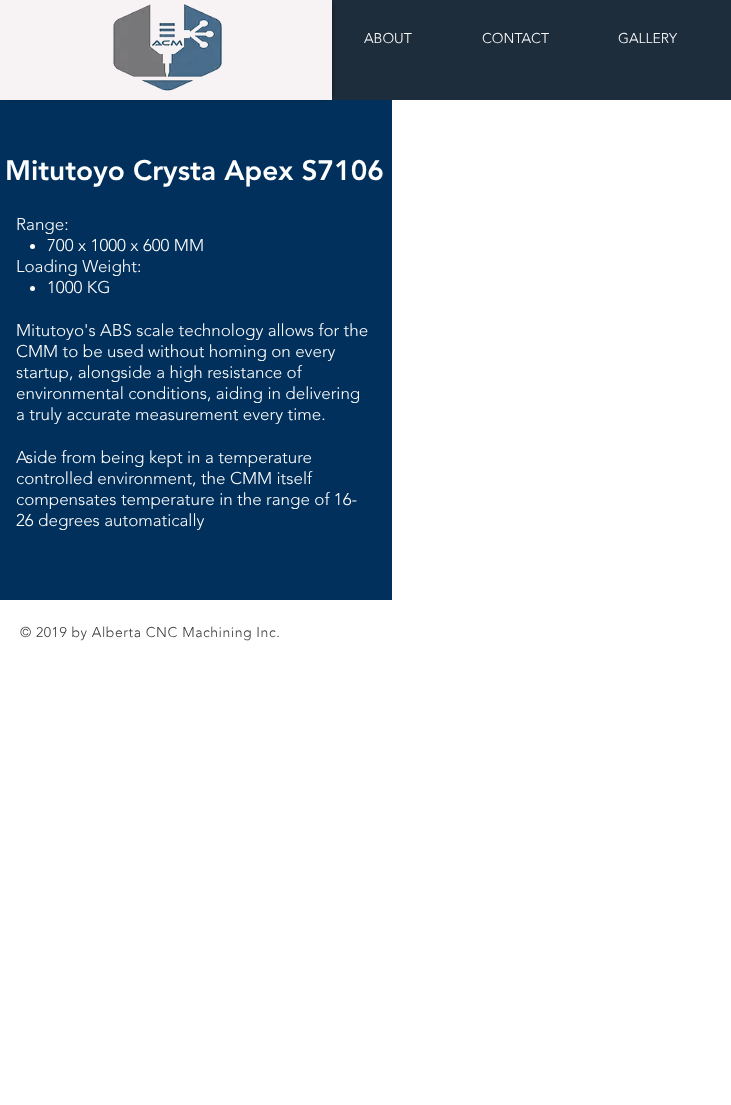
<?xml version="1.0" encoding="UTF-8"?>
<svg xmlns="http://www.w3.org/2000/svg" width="731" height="1105">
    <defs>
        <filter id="blur1" x="-50%" y="-200%" width="200%" height="500%"><feGaussianBlur stdDeviation="2.5"/></filter>
    </defs>
    <rect width="100%" height="100%" fill="#FFFFFF"/>
    <rect x="332" y="0" width="399" height="100" fill="#1E2D3B"/>
    <rect x="0" y="100" width="392" height="500" fill="#00305B"/>
    <rect x="0" y="2" width="332" height="96" rx="2" fill="#000000" fill-opacity="0.53" filter="url(#blur1)"/>
    <image x="0" y="0" width="332" height="100" href="img_01.png"/>
    <text x="364" y="43" font-family="'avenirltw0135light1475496'" font-size="14" font-weight="300" fill="#FFFFFF">ABOUT</text>
    <text x="482" y="43" font-family="'avenirltw0135light1475496'" font-size="14" font-weight="300" fill="#FFFFFF">CONTACT</text>
    <text x="618" y="43" font-family="'avenirltw0135light1475496'" font-size="14" font-weight="300" fill="#FFFFFF">GALLERY</text>
    <text x="5" y="180" font-family="'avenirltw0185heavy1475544'" font-size="28" font-weight="900" fill="#FFFFFF">Mitutoyo Crysta Apex S7106</text>
    <text x="16" y="230" font-family="'avenirltw0135light1475496'" font-size="17" font-weight="300" fill="#FFFFFF">Range:</text>
    <circle cx="32.5" cy="246.5" r="2.5" fill="#FFFFFF"/>
    <text x="47" y="251" font-family="'avenirltw0135light1475496'" font-size="17" font-weight="300" fill="#FFFFFF">700 x 1000 x 600 MM</text>
    <text x="16" y="272" font-family="'avenirltw0135light1475496'" font-size="17" font-weight="300" fill="#FFFFFF">Loading Weight:</text>
    <circle cx="32.5" cy="288.5" r="2.5" fill="#FFFFFF"/>
    <text x="47" y="293" font-family="'avenirltw0135light1475496'" font-size="17" font-weight="300" fill="#FFFFFF">1000 KG</text>
    <text font-family="'avenirltw0135light1475496'" font-size="17" font-weight="300" fill="#FFFFFF">
        <tspan x="16" y="336">Mitutoyo's ABS scale technology allows for the</tspan>
        <tspan x="16" y="357">CMM to be used without homing on every</tspan>
        <tspan x="16" y="378">startup, alongside a high resistance of</tspan>
        <tspan x="16" y="399">environmental conditions, aiding in delivering</tspan>
        <tspan x="16" y="420">a truly accurate measurement every time.</tspan>
    </text>
    <text font-family="'avenirltw0135light1475496'" font-size="17" font-weight="300" fill="#FFFFFF">
        <tspan x="16" y="463">Aside from being kept in a temperature</tspan>
        <tspan x="16" y="484">controlled environment, the CMM itself</tspan>
        <tspan x="16" y="505">compensates temperature in the range of 16-</tspan>
        <tspan x="16" y="526">26 degrees automatically</tspan>
    </text>
    <text x="20" y="637" font-family="'avenirltw0135light1475496'" font-size="14" font-weight="300" letter-spacing="0.55" fill="#3B3A3A">© 2019 by Alberta CNC Machining Inc.</text>
</svg>
